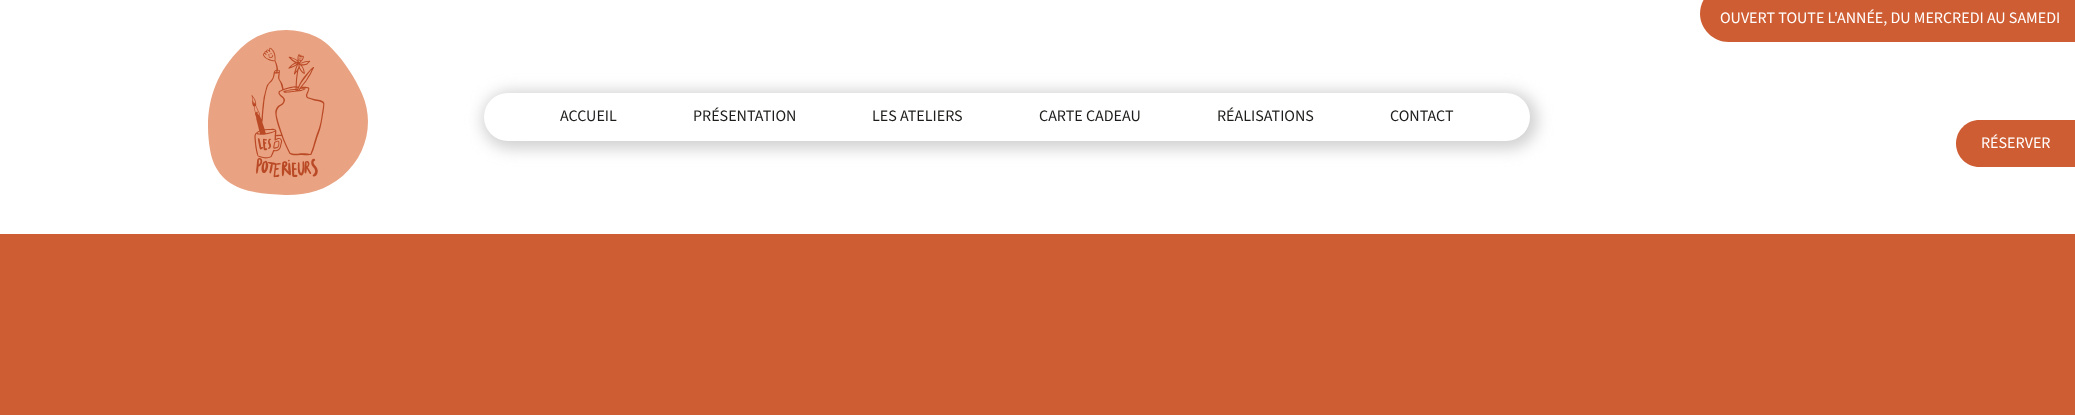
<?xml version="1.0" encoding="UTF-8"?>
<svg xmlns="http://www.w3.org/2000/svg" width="2075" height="415">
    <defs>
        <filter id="blur1" x="-50%" y="-200%" width="200%" height="500%"><feGaussianBlur stdDeviation="7.5"/></filter>
    </defs>
    <rect width="100%" height="100%" fill="#FFFFFF"/>
    <path d="M 1728.5 -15 H 2075 V 42 H 1728.5 C 1713 42 1700 29 1700 13.5 C 1700 -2 1713 -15 1728.5 -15 Z" fill="#CF5D33"/>
    <text x="1720" y="23" font-family="'Source Sans 3'" font-size="16" fill="#FFFFFF">OUVERT TOUTE L'ANNÉE, DU MERCREDI AU SAMEDI</text>
    <image x="208" y="30" width="160" height="165" href="img_01.png"/>
    <rect x="482" y="91" width="1056" height="58" rx="29" fill="#D1D1D1" filter="url(#blur1)"/>
    <rect x="484" y="93" width="1046" height="48" rx="24" fill="#FFFFFF"/>
    <text x="560" y="121" font-family="'Source Sans 3'" font-size="16" fill="#1D1D1B">ACCUEIL</text>
    <text x="693" y="121" font-family="'Source Sans 3'" font-size="16" fill="#1D1D1B">PRÉSENTATION</text>
    <text x="872" y="121" font-family="'Source Sans 3'" font-size="16" fill="#1D1D1B">LES ATELIERS</text>
    <text x="1039" y="121" font-family="'Source Sans 3'" font-size="16" fill="#1D1D1B">CARTE CADEAU</text>
    <text x="1217" y="121" font-family="'Source Sans 3'" font-size="16" fill="#1D1D1B">RÉALISATIONS</text>
    <text x="1390" y="121" font-family="'Source Sans 3'" font-size="16" fill="#1D1D1B">CONTACT</text>
    <path d="M 1979.5 120 H 2075 V 167 H 1979.5 C 1966.5 167 1956 156.5 1956 143.5 C 1956 130.5 1966.5 120 1979.5 120 Z" fill="#CF5D33"/>
    <text x="1981" y="148" font-family="'Source Sans 3'" font-size="16" fill="#FFFFFF">RÉSERVER</text>
    <rect x="0" y="234" width="2075" height="181" fill="#CF5D33"/>
</svg>
